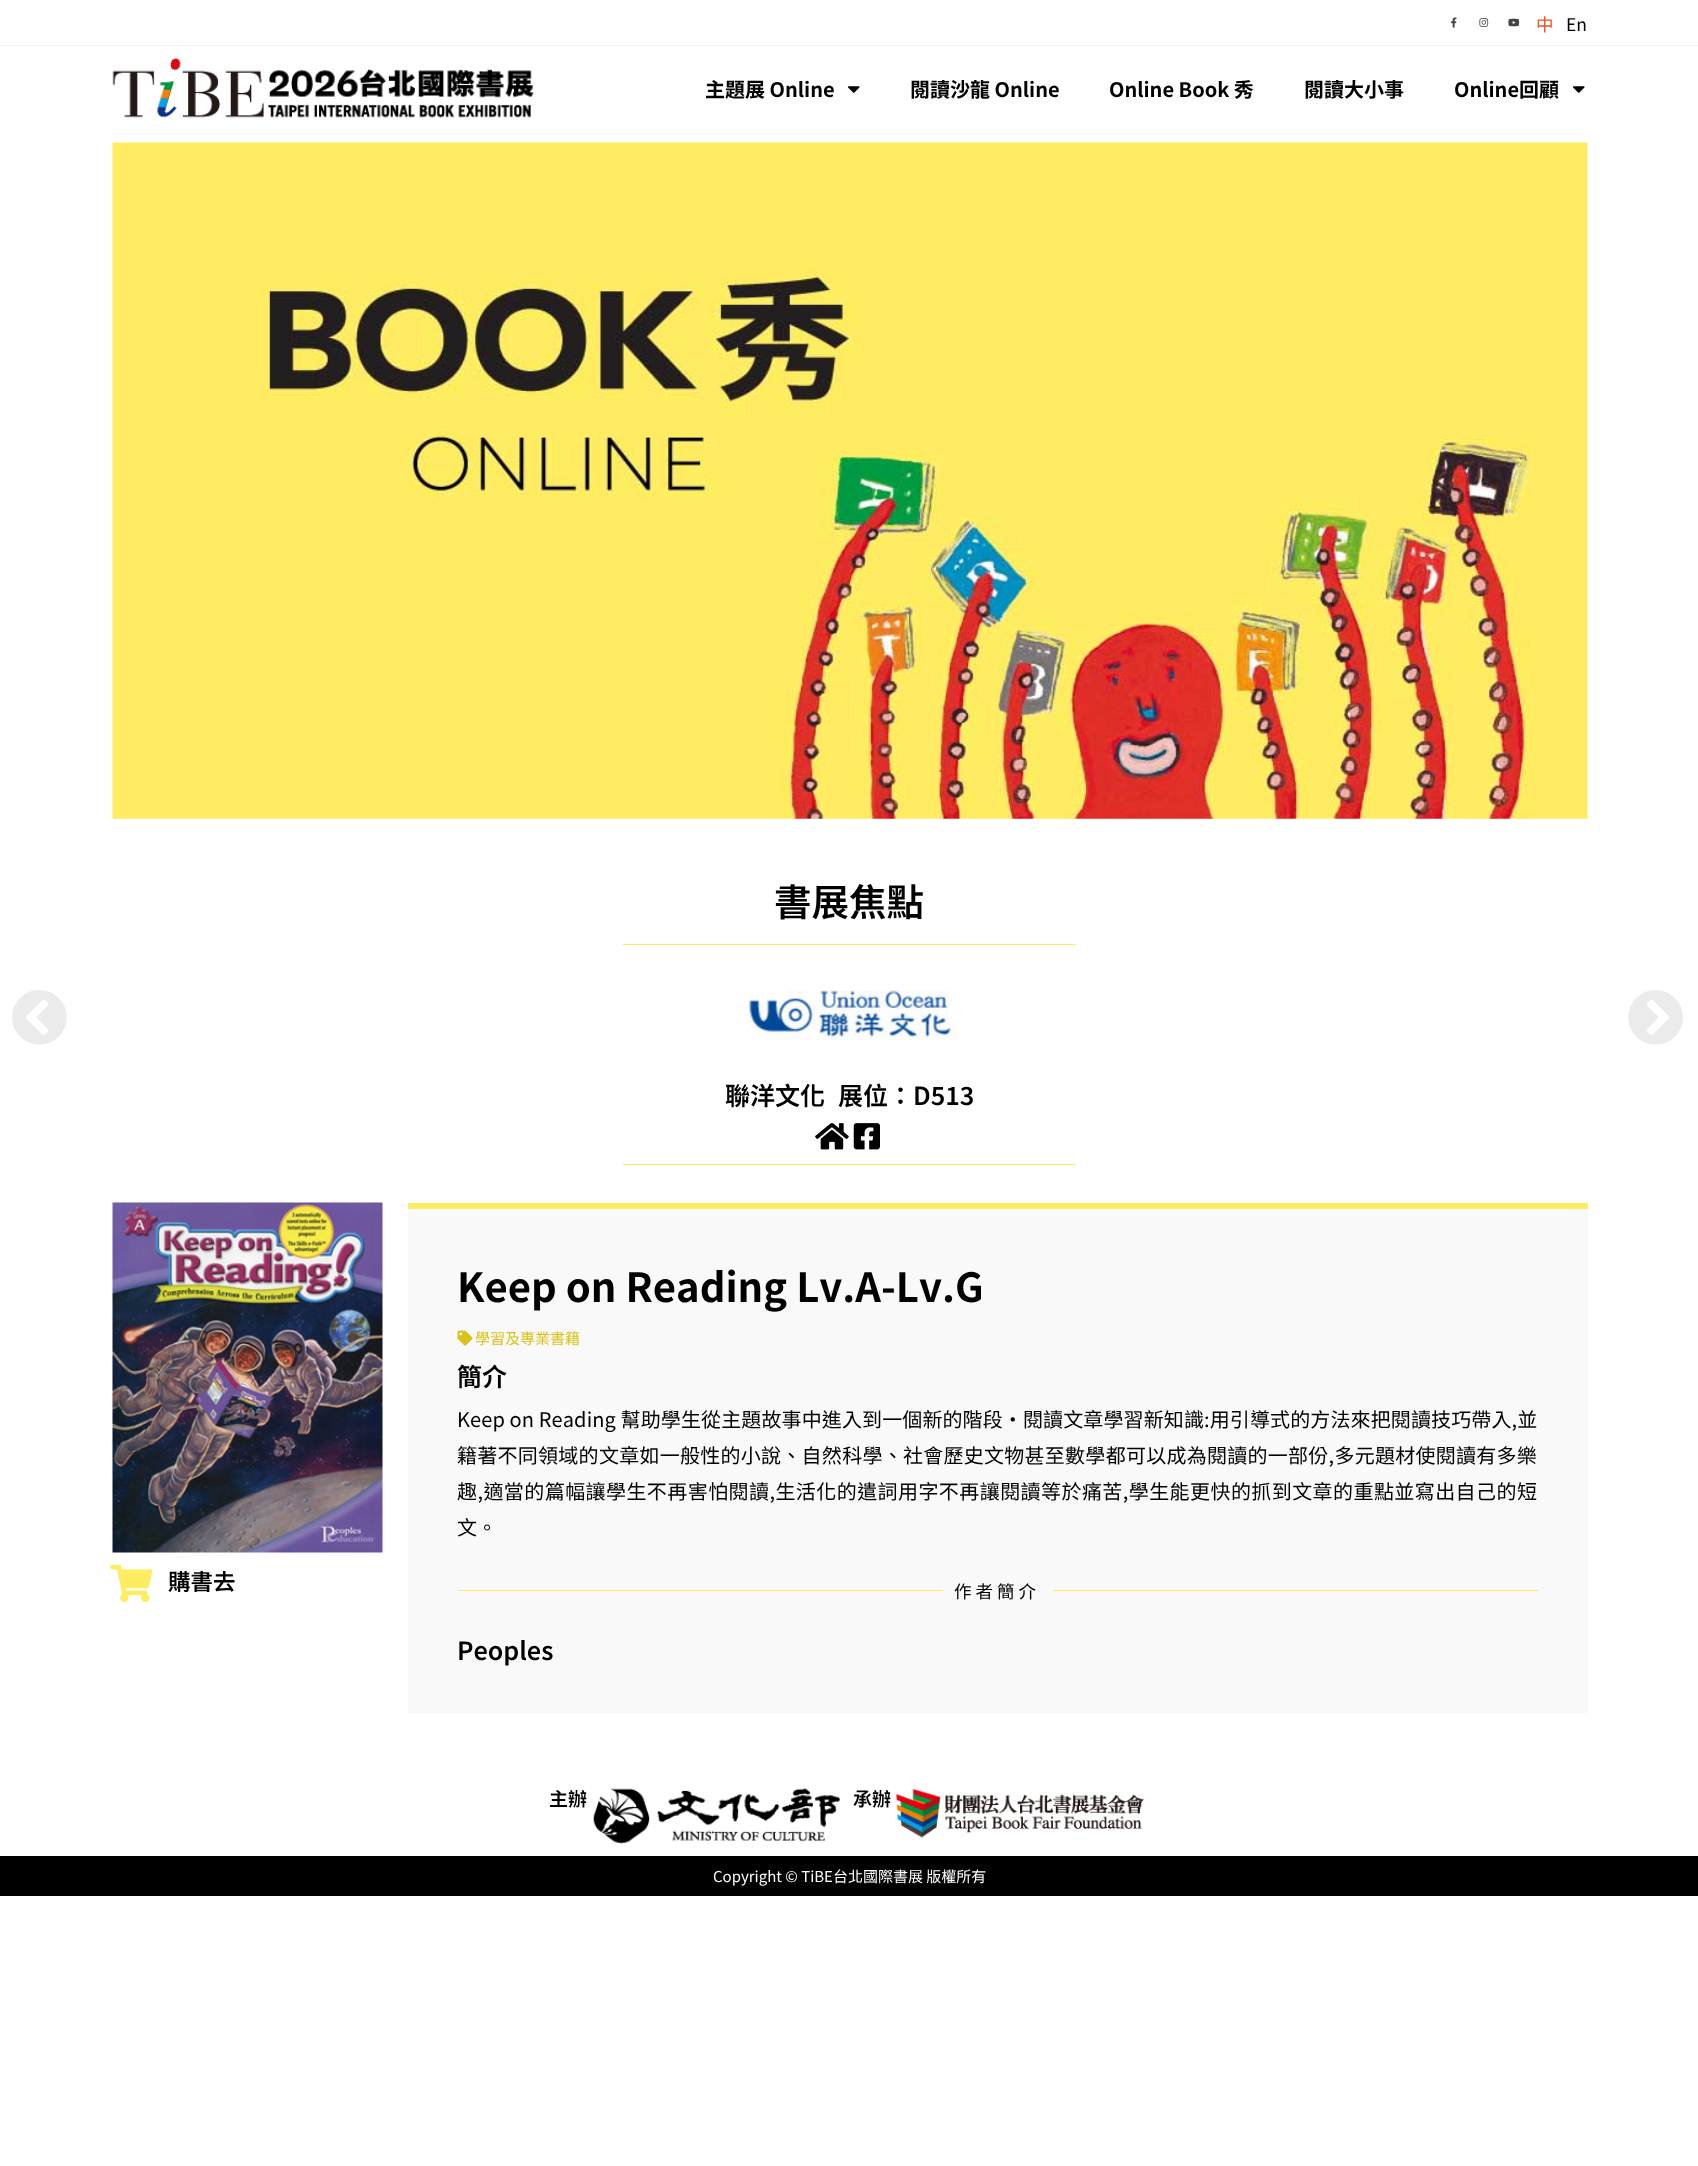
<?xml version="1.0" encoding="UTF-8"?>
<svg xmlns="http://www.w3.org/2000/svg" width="1698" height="2166">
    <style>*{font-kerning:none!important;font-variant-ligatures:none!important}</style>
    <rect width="100%" height="100%" fill="#FFFFFF"/>
    <rect x="0" y="45" width="1698" height="1" fill="#F2F2F2"/>
    <image x="1451" y="17" width="6" height="11" href="img_01.png"/>
    <image x="1479" y="18" width="10" height="9" href="img_02.png"/>
    <image x="1508" y="18" width="12" height="9" href="img_03.png"/>
    <text x="1536" y="31" font-family="Noto Sans TC" font-size="17.5" fill="#F05323">中</text>
    <text x="1566" y="31" font-family="Noto Sans TC" font-size="17.5" fill="#000000">En</text>
    <image x="112" y="58" width="152" height="60" href="img_04.png"/>
    <image x="263" y="69" width="271" height="49" href="img_05.png"/>
    <text x="705" y="97" font-family="Noto Sans JP" font-size="20" font-weight="700" fill="#000000">主題展 Online</text>
    <image x="848" y="86" width="12" height="7" href="img_06.png"/>
    <text x="910" y="97" font-family="Noto Sans JP" font-size="20" font-weight="700" fill="#000000">閱讀沙龍 Online</text>
    <text x="1109" y="97" font-family="Noto Sans JP" font-size="20" font-weight="700" fill="#000000">Online Book 秀</text>
    <text x="1304" y="97" font-family="Noto Sans JP" font-size="20" font-weight="700" fill="#000000">閱讀大小事</text>
    <text x="1454" y="97" font-family="Noto Sans JP" font-size="20" font-weight="700" fill="#000000">Online回顧</text>
    <image x="1573" y="86" width="12" height="7" href="img_06.png"/>
    <image x="112" y="142" width="1476" height="677" href="img_07.png"/>
    <text x="774" y="916" font-family="Noto Sans TC" font-size="37.5" font-weight="600" fill="#000000">書展焦點</text>
    <rect x="623" y="944" width="453" height="1" fill="#FFED61"/>
    <image x="748" y="990" width="210" height="51" href="img_08.png"/>
    <text x="725" y="1105" font-family="Noto Sans TC" font-size="25" font-weight="600" fill="#000000">聯洋文化</text>
    <text x="838" y="1105" font-family="Noto Sans TC" font-size="25" font-weight="600" fill="#000000">展位：D513</text>
    <image x="815" y="1123" width="34" height="27" href="img_09.png"/>
    <image x="853" y="1123" width="27" height="27" href="img_10.png"/>
    <rect x="623" y="1164" width="453" height="1" fill="#FFED61"/>
    <image x="12" y="990" width="55" height="55" href="img_11.png"/>
    <image x="1628" y="990" width="55" height="55" href="img_12.png"/>
    <image x="112" y="1202" width="271" height="351" href="img_13.png"/>
    <image x="110" y="1564" width="43" height="39" href="img_14.png"/>
    <text x="168" y="1590" font-family="Noto Sans TC" font-size="22.5" font-weight="600" fill="#000000">購書去</text>
    <rect x="408" y="1209" width="1180" height="504" fill="#F9F9F9"/>
    <rect x="408" y="1203" width="1180" height="6" fill="#FFED61"/>
    <text x="457" y="1302" font-family="Noto Sans TC" font-size="40" font-weight="700" fill="#000000">Keep on Reading Lv.A-Lv.G</text>
    <image x="457" y="1330" width="16" height="16" href="img_15.png"/>
    <text x="475" y="1344" font-family="Noto Sans TC" font-size="15" fill="#D9C31A">學習及專業書籍</text>
    <text x="457" y="1386" font-family="Noto Sans TC" font-size="25" font-weight="600" fill="#000000">簡介</text>
    <text x="457" y="1427" font-family="Noto Sans TC" font-size="20" letter-spacing="0.12" fill="#000000">Keep on Reading 幫助學生從主題故事中進入到一個新的階段·閱讀文章學習新知識:用引導式的方法來把閱讀技巧帶入,並</text>
    <text x="457" y="1463" font-family="Noto Sans TC" font-size="20" letter-spacing="0.27" fill="#000000">籍著不同領域的文章如一般性的小說、自然科學、社會歷史文物甚至數學都可以成為閱讀的一部份,多元題材使閱讀有多樂</text>
    <text x="457" y="1499" font-family="Noto Sans TC" font-size="20" letter-spacing="0.43" fill="#000000">趣,適當的篇幅讓學生不再害怕閱讀,生活化的遣詞用字不再讓閱讀等於痛苦,學生能更快的抓到文章的重點並寫出自己的短</text>
    <text x="457" y="1535" font-family="Noto Sans TC" font-size="20" fill="#000000">文。</text>
    <rect x="458" y="1590" width="485" height="1" fill="#FFED61"/>
    <text x="954" y="1598" font-family="Noto Sans TC" font-size="17.5" letter-spacing="4" fill="#000000">作者簡介</text>
    <rect x="1053" y="1590" width="485" height="1" fill="#FFED61"/>
    <text x="457" y="1660" font-family="Noto Sans TC" font-size="25" font-weight="600" fill="#000000">Peoples</text>
    <text x="549" y="1806" font-family="Noto Sans TC" font-size="19" font-weight="600" fill="#000000">主辦</text>
    <image x="593" y="1788" width="247" height="56" href="img_16.png"/>
    <text x="853" y="1806" font-family="Noto Sans TC" font-size="19" font-weight="600" fill="#000000">承辦</text>
    <image x="896" y="1788" width="248" height="50" href="img_17.png"/>
    <rect x="0" y="1856" width="1698" height="40" fill="#000000"/>
    <text x="713" y="1882" font-family="Noto Sans TC" font-size="15" fill="#FFFFFF">Copyright © TiBE台北國際書展 版權所有</text>
</svg>
